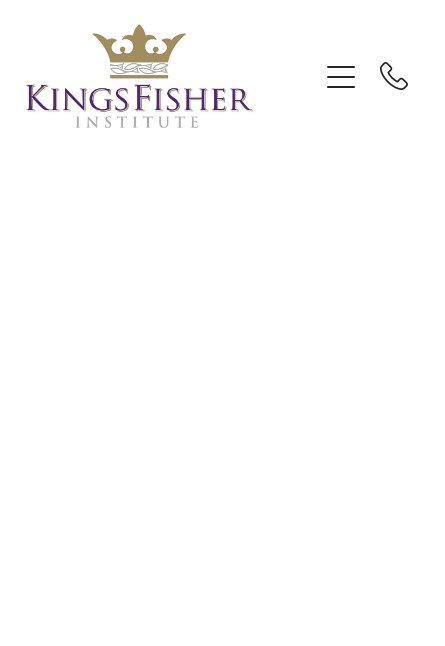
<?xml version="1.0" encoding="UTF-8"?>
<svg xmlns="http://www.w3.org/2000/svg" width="445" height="646">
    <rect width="100%" height="100%" fill="#FFFFFF"/>
    <image x="24" y="23" width="233" height="105" href="img_01.png"/>
    <rect x="327" y="76" width="28" height="2" rx="1" fill="#222222"/>
    <rect x="327" y="66" width="28" height="2" rx="1" fill="#222222"/>
    <rect x="327" y="86" width="28" height="2" rx="1" fill="#222222"/>
    <image x="380" y="62" width="28" height="28" href="img_02.png"/>
</svg>
